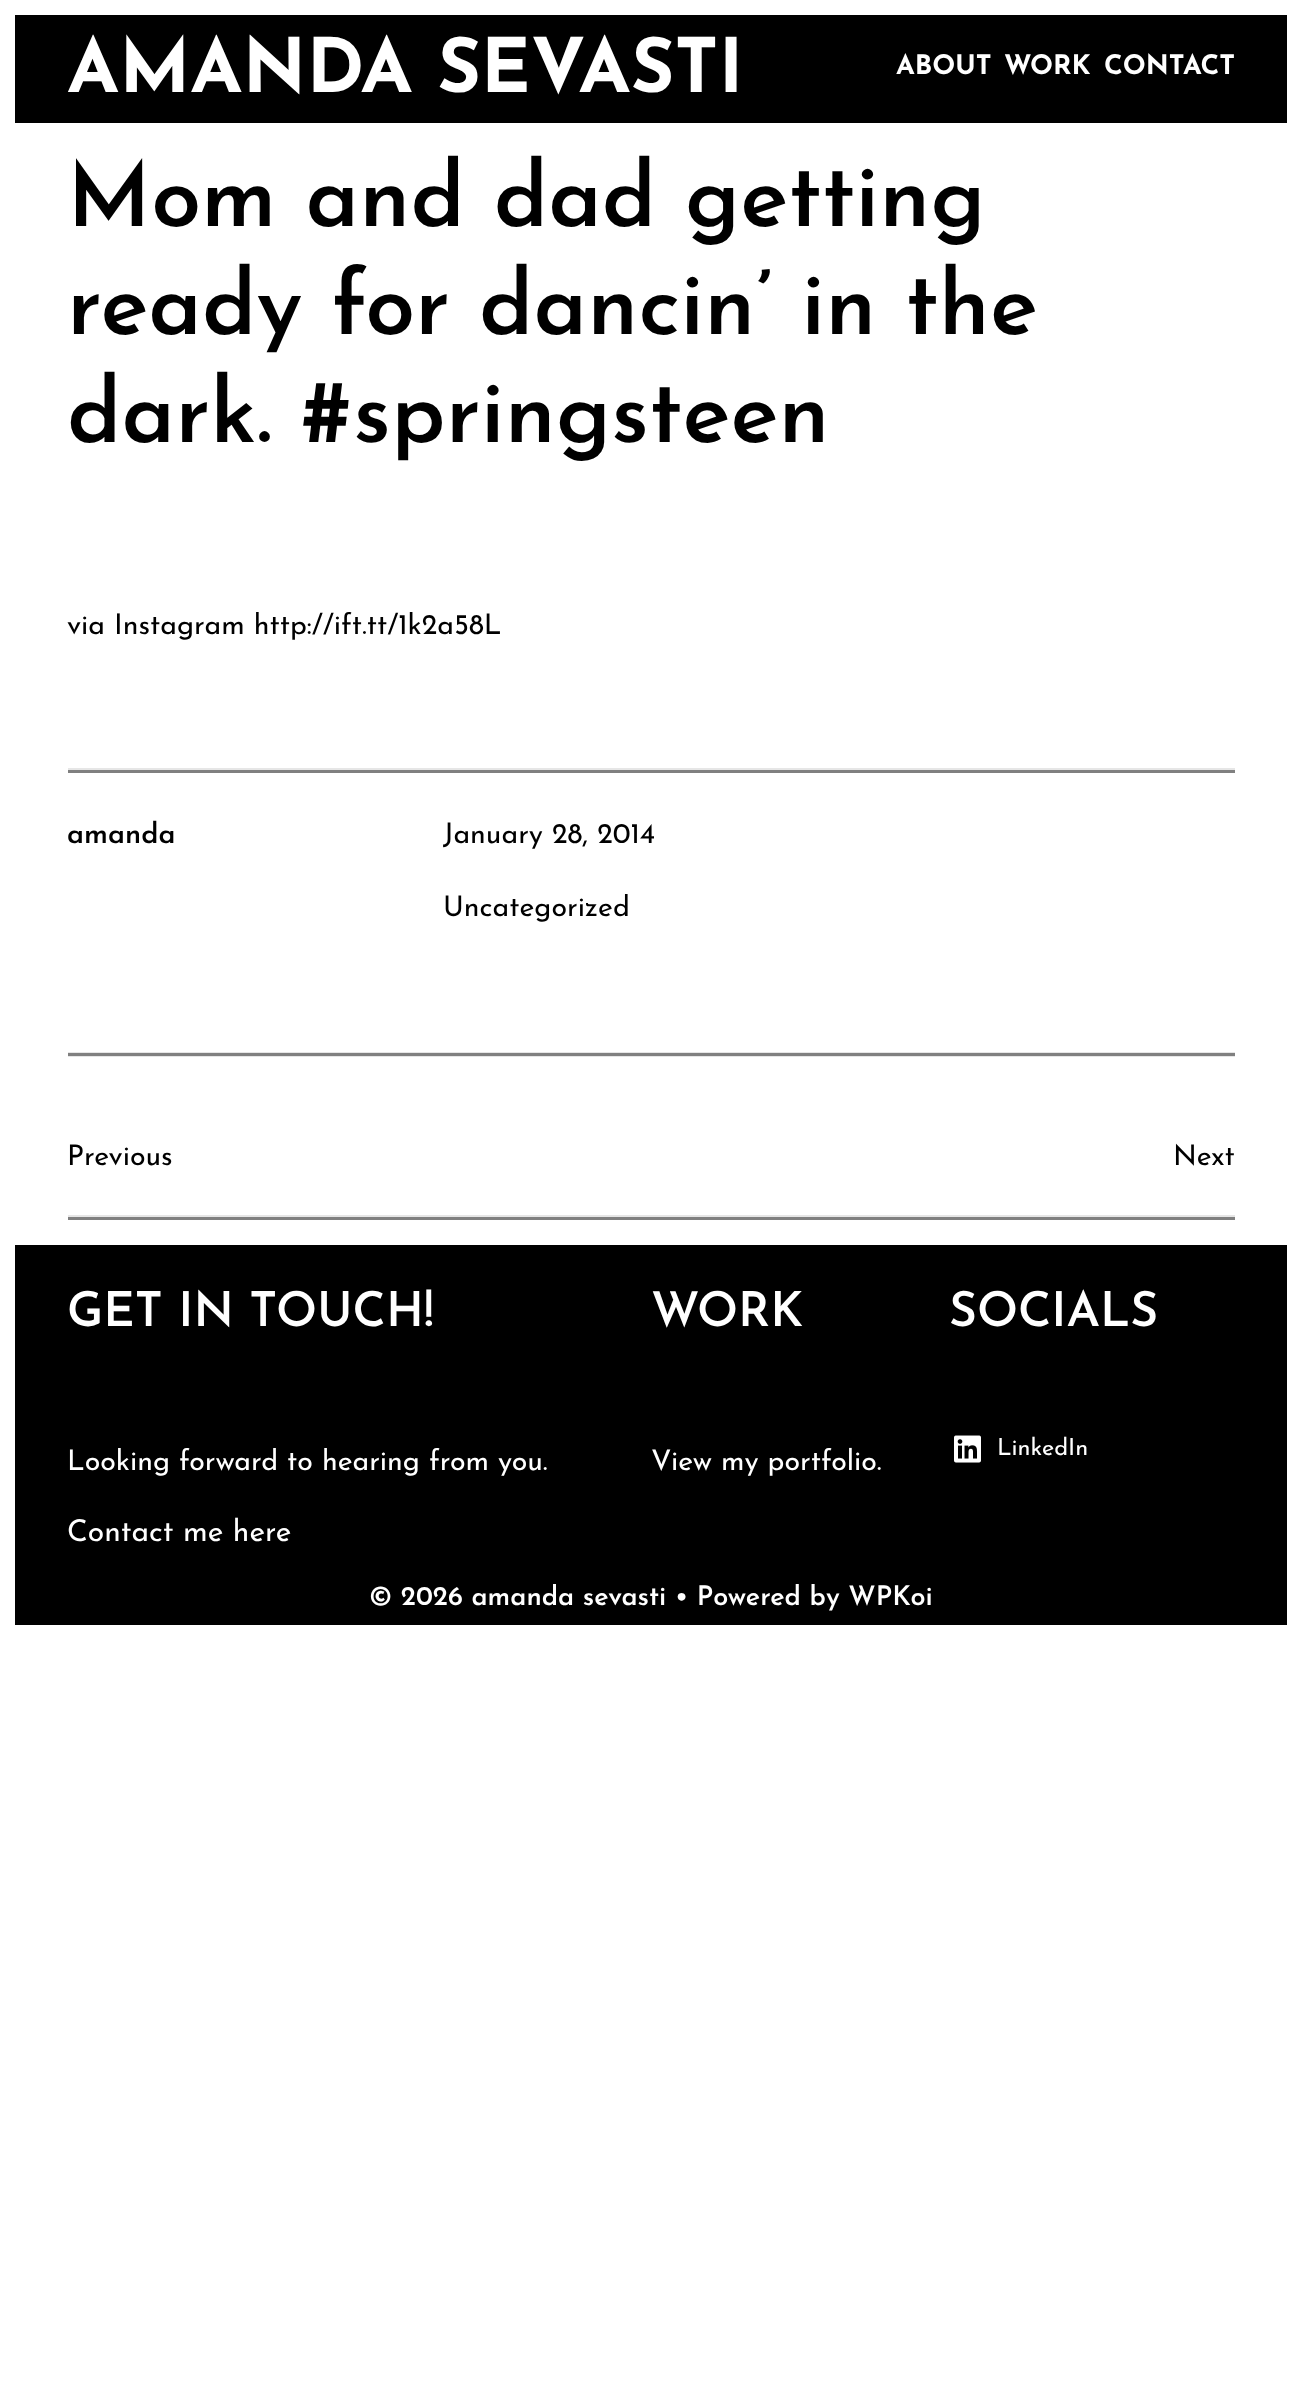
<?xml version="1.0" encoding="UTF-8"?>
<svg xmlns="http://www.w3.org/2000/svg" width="1301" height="2401">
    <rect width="100%" height="100%" fill="#FFFFFF"/>
    <rect x="15" y="15" width="1272" height="108" fill="#000000"/>
    <text x="67" y="92" font-family="Josefin Sans" font-size="75" font-weight="700" fill="#FFFFFF">AMANDA SEVASTI</text>
    <text x="896" y="74" font-family="Josefin Sans" font-size="27" font-weight="700" fill="#FFFFFF">ABOUT</text>
    <text x="1004" y="74" font-family="Josefin Sans" font-size="27" font-weight="700" fill="#FFFFFF">WORK</text>
    <text x="1104" y="74" font-family="Josefin Sans" font-size="27" font-weight="700" fill="#FFFFFF">CONTACT</text>
    <text font-family="Josefin Sans" font-size="90" font-weight="600" fill="#000000">
        <tspan x="67" y="226">Mom and dad getting</tspan>
        <tspan x="67" y="334">ready for dancin’ in the</tspan>
        <tspan x="67" y="442">dark. #springsteen</tspan>
    </text>
    <text x="67" y="634" font-family="Josefin Sans" font-size="28.5" fill="#000000">via Instagram http://ift.tt/1k2a58L</text>
    <rect x="68" y="768" width="1167" height="2" fill="#E6E6E6"/>
    <rect x="68" y="770" width="1167" height="3" fill="#808080"/>
    <text x="67" y="843" font-family="Josefin Sans" font-size="28.5" font-weight="600" fill="#000000">amanda</text>
    <text x="443" y="843" font-family="Josefin Sans" font-size="28.5" fill="#000000">January 28, 2014</text>
    <text x="443" y="916" font-family="Josefin Sans" font-size="28.5" fill="#000000">Uncategorized</text>
    <rect x="68" y="1052" width="1167" height="5" fill="#E6E6E6"/>
    <rect x="68" y="1053" width="1167" height="3" fill="#808080"/>
    <text x="67" y="1165" font-family="Josefin Sans" font-size="28.5" fill="#000000">Previous</text>
    <text x="1173" y="1165" font-family="Josefin Sans" font-size="28.5" fill="#000000">Next</text>
    <rect x="68" y="1215" width="1167" height="2" fill="#E6E6E6"/>
    <rect x="68" y="1217" width="1167" height="3" fill="#808080"/>
    <rect x="15" y="1245" width="1272" height="380" fill="#000000"/>
    <text x="67" y="1326" font-family="Josefin Sans" font-size="48" font-weight="600" fill="#FFFFFF">GET IN TOUCH!</text>
    <text x="67" y="1470" font-family="Josefin Sans" font-size="28.5" fill="#FFFFFF">Looking forward to hearing from you.</text>
    <text x="67" y="1541" font-family="Josefin Sans" font-size="30" fill="#FFFFFF">Contact me here</text>
    <text x="651" y="1326" font-family="Josefin Sans" font-size="48" font-weight="600" fill="#FFFFFF">WORK</text>
    <text x="651" y="1470" font-family="Josefin Sans" font-size="28.5" fill="#FFFFFF">View my portfolio.</text>
    <text x="949" y="1326" font-family="Josefin Sans" font-size="48" font-weight="600" fill="#FFFFFF">SOCIALS</text>
    <image x="954" y="1435" width="27" height="28" href="img_01.png"/>
    <text x="997" y="1455" font-family="Josefin Sans" font-size="23.5" fill="#FFFFFF">LinkedIn</text>
    <text x="369" y="1605" font-family="Josefin Sans" font-size="27" font-weight="600" fill="#FFFFFF">© 2026 amanda sevasti • Powered by WPKoi</text>
</svg>
